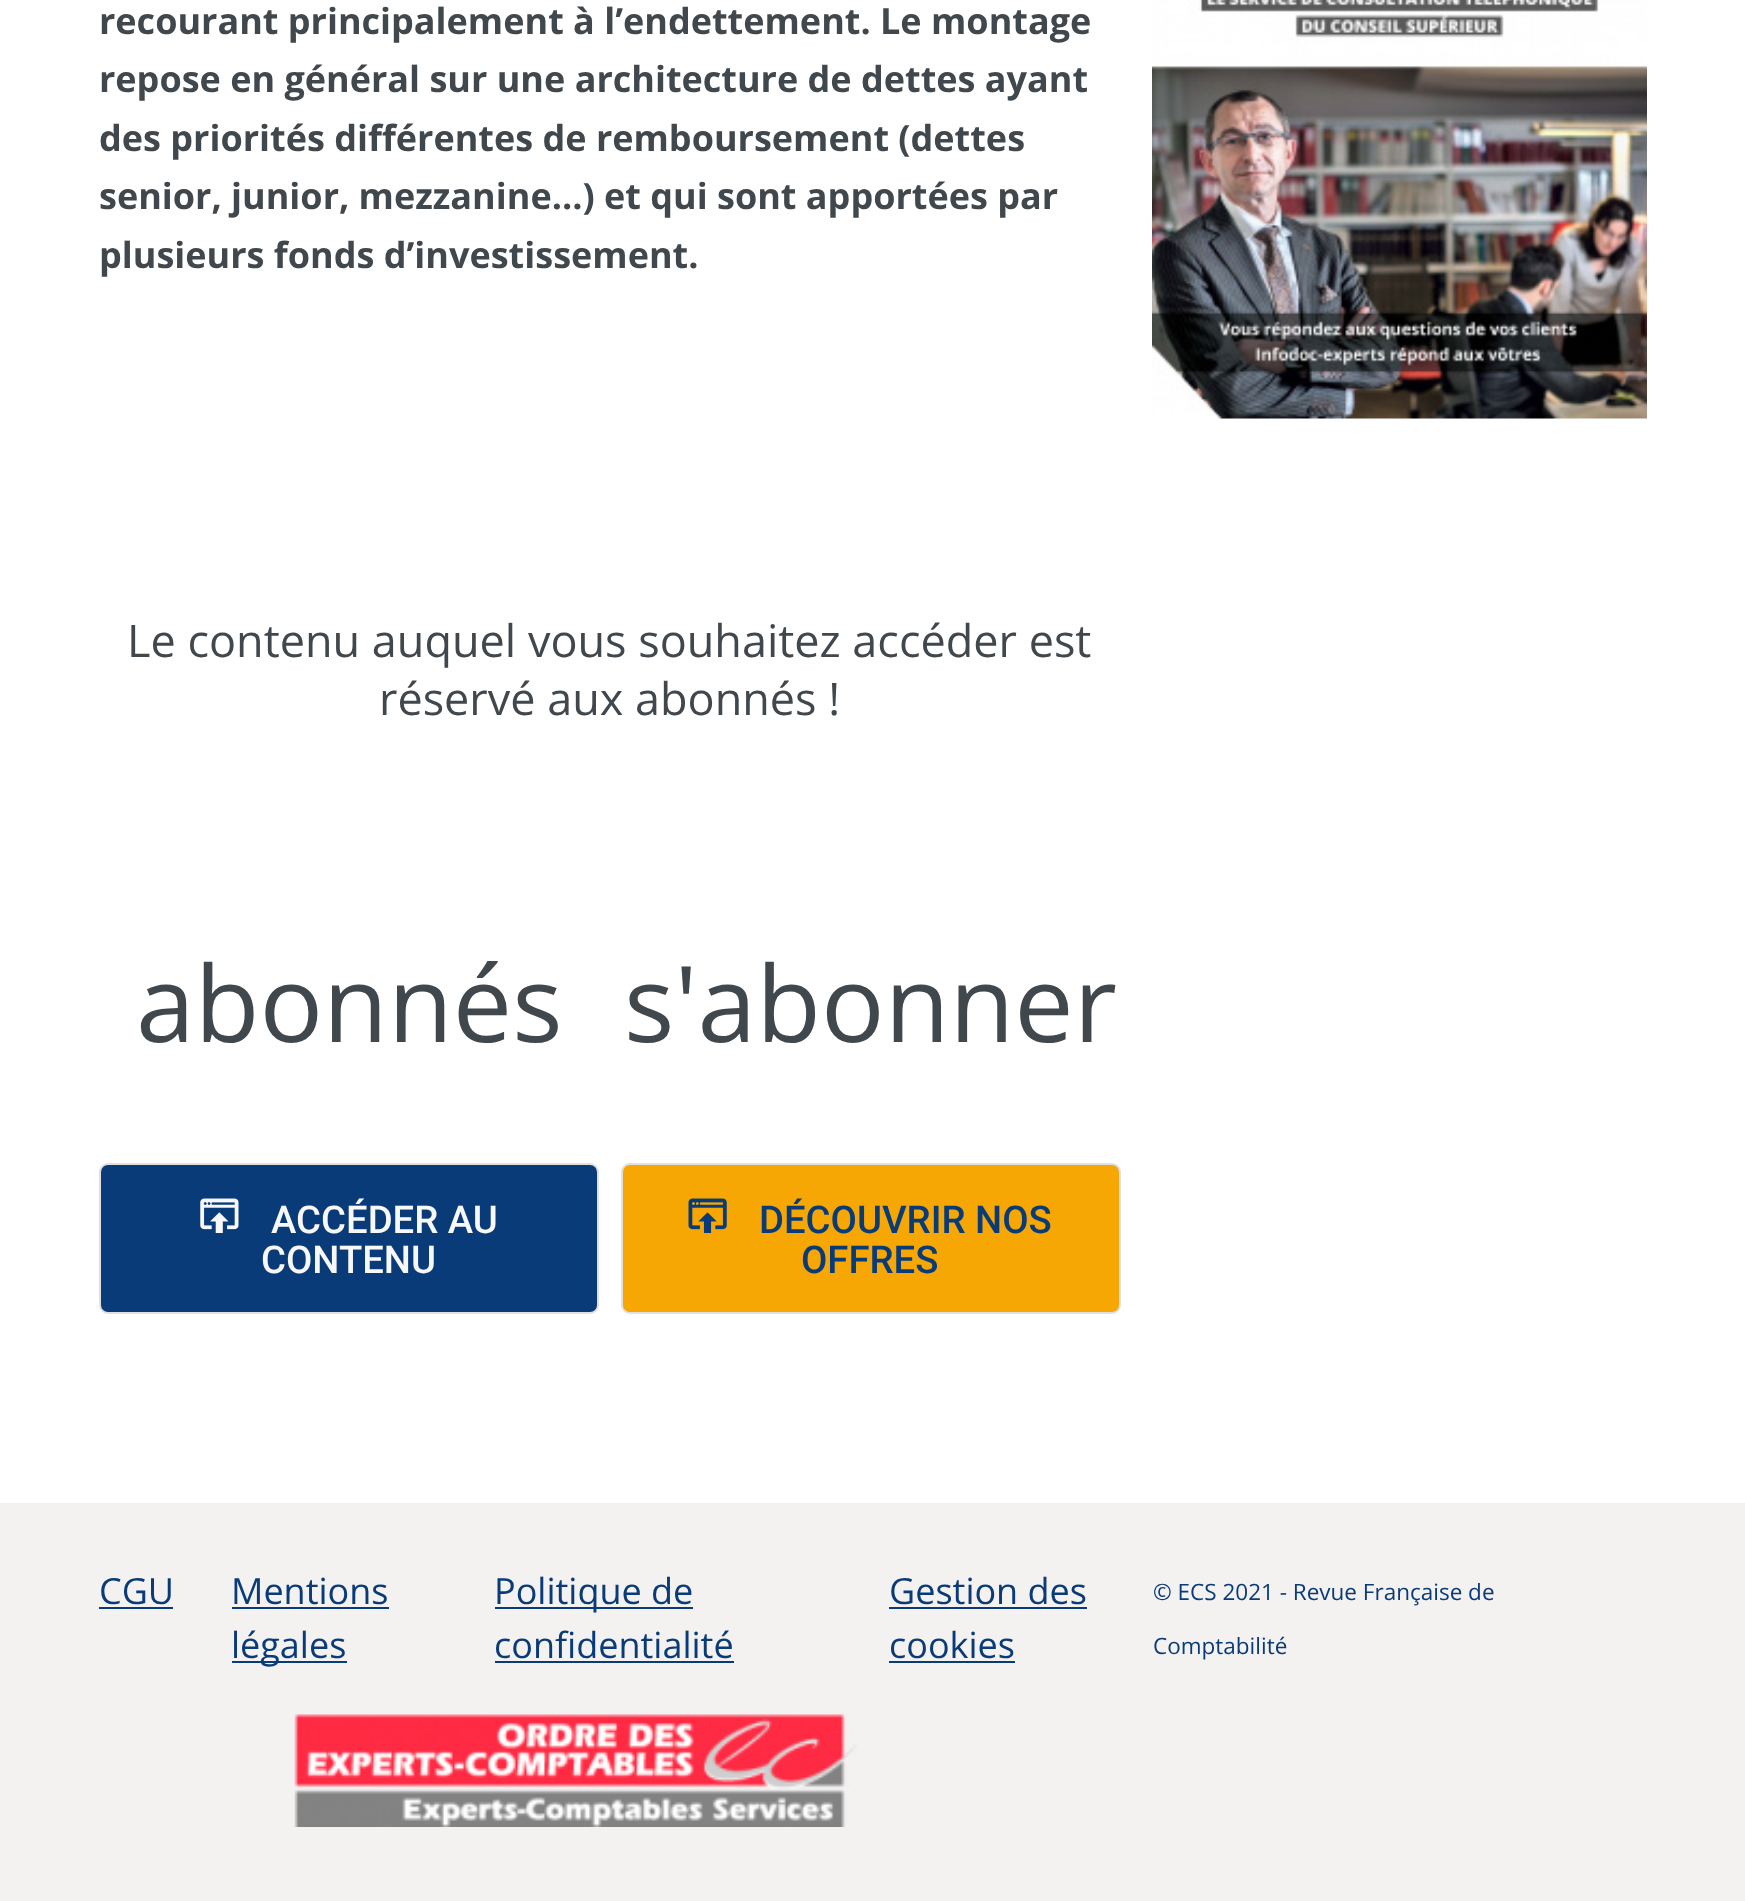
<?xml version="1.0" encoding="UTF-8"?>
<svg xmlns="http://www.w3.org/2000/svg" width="1745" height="1901">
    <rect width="100%" height="100%" fill="#FFFFFF"/>
    <text font-family="Open Sans" font-size="36" font-weight="700" fill="#41484D">
        <tspan x="99" y="34">recourant principalement à l’endettement. Le montage</tspan>
        <tspan x="99" y="92">repose en général sur une architecture de dettes ayant</tspan>
        <tspan x="99" y="151">des priorités différentes de remboursement (dettes</tspan>
        <tspan x="99" y="209">senior, junior, mezzanine…) et qui sont apportées par</tspan>
        <tspan x="99" y="268">plusieurs fonds d’investissement.</tspan>
    </text>
    <text x="127" y="657" font-family="Open Sans" font-size="45" fill="#41484D">Le contenu auquel vous souhaitez accéder est</text>
    <text x="379" y="715" font-family="Open Sans" font-size="45" fill="#41484D">réservé aux abonnés !</text>
    <text x="136" y="1042" font-family="Open Sans" font-size="105.75" fill="#41484D">abonnés</text>
    <rect x="100" y="1164" width="498" height="149" rx="8" fill="#093B78" stroke="#E2DFDF" stroke-width="2"/>
    <image x="200" y="1198" width="39" height="35" href="img_01.png"/>
    <text x="271" y="1233" font-family="Roboto" font-size="38.25" font-weight="500" fill="#F8F8F8">ACCÉDER AU</text>
    <text x="261" y="1273" font-family="Roboto" font-size="38.25" font-weight="500" fill="#F8F8F8">CONTENU</text>
    <text x="624" y="1042" font-family="Open Sans" font-size="105.75" fill="#41484D">s'abonner</text>
    <rect x="622" y="1164" width="498" height="149" rx="8" fill="#F6A704" stroke="#E2DFDF" stroke-width="2"/>
    <image x="688" y="1198" width="39" height="35" href="img_02.png"/>
    <text x="759" y="1233" font-family="Roboto" font-size="38.25" font-weight="500" fill="#093B78">DÉCOUVRIR NOS</text>
    <text x="801" y="1273" font-family="Roboto" font-size="38.25" font-weight="500" fill="#093B78">OFFRES</text>
    <image x="1152" y="0" width="495" height="419" href="img_03.png"/>
    <rect x="0" y="1503" width="1745" height="398" fill="#F4F1F1"/>
    <text x="99" y="1604" font-family="Open Sans" font-size="36" fill="#093B78">CGU</text>
    <rect x="99" y="1607" width="74" height="2" fill="#093B78"/>
    <text x="231" y="1604" font-family="Open Sans" font-size="36" fill="#093B78">Mentions</text>
    <rect x="232" y="1607" width="157" height="2" fill="#093B78"/>
    <rect x="232" y="1661" width="115" height="2" fill="#093B78"/>
    <text x="231" y="1658" font-family="Open Sans" font-size="36" fill="#093B78">légales</text>
    <rect x="495" y="1607" width="198" height="2" fill="#093B78"/>
    <text font-family="Open Sans" font-size="36" fill="#093B78">
        <tspan x="494" y="1604">Politique de</tspan>
        <tspan x="494" y="1658">confidentialité</tspan>
    </text>
    <rect x="495" y="1661" width="239" height="2" fill="#093B78"/>
    <text x="889" y="1604" font-family="Open Sans" font-size="36" fill="#093B78">Gestion des</text>
    <rect x="889" y="1607" width="198" height="2" fill="#093B78"/>
    <text x="889" y="1658" font-family="Open Sans" font-size="36" fill="#093B78">cookies</text>
    <rect x="889" y="1661" width="126" height="2" fill="#093B78"/>
    <text x="1153" y="1600" font-family="Open Sans" font-size="22.5" fill="#093B78">© ECS 2021 - Revue Française de</text>
    <text x="1153" y="1654" font-family="Open Sans" font-size="22.5" fill="#093B78">Comptabilité</text>
    <image x="294" y="1714" width="563" height="113" href="img_04.png"/>
</svg>
